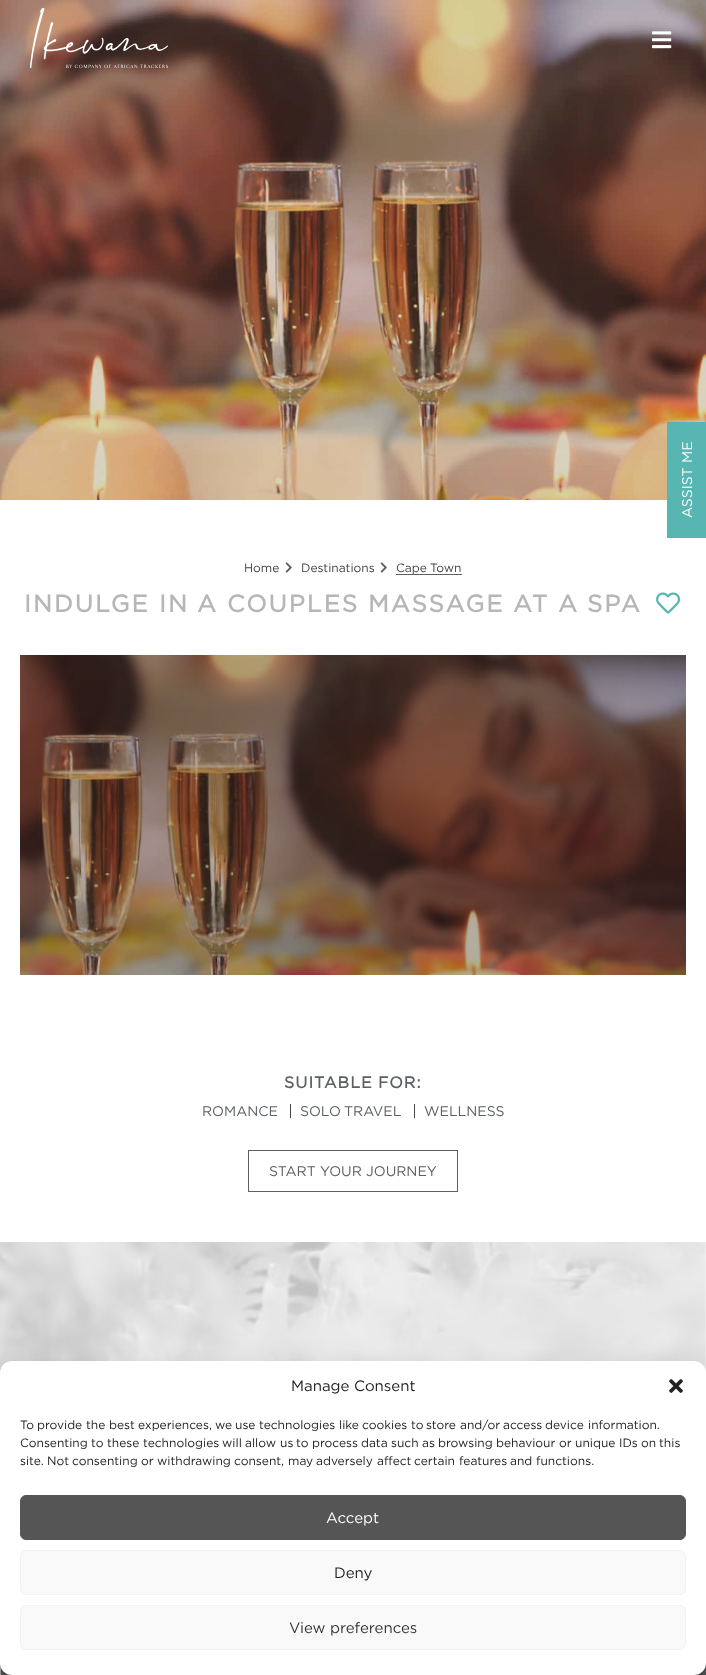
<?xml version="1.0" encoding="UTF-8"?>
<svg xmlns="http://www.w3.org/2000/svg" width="706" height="1675">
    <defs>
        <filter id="blur1" x="-50%" y="-200%" width="200%" height="500%"><feGaussianBlur stdDeviation="3"/></filter>
        <filter id="blur2" x="-50%" y="-200%" width="200%" height="500%"><feGaussianBlur stdDeviation="10"/></filter>
    </defs>
    <rect width="100%" height="100%" fill="#FFFFFF"/>
    <image x="0" y="0" width="706" height="500" href="img_03.png"/>
    <image x="29" y="8" width="139" height="61" href="img_01.png"/>
    <image x="652" y="31" width="20" height="18" href="img_02.png"/>
    <rect x="667" y="422" width="39" height="116" fill="#57B6B2"/>
    <text x="692" y="463" transform="rotate(-90 692 463)" font-family="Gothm" font-size="14" fill="#FFFFFF">ME</text>
    <text x="692" y="518" transform="rotate(-90 692 518)" font-family="Gothm" font-size="14" fill="#FFFFFF">ASSIST</text>
    <text x="244" y="572" font-family="Gothm" font-size="12" fill="#444444">Home</text>
    <image x="285" y="562" width="7" height="11" href="img_04.png"/>
    <text x="301" y="572" font-family="Gothm" font-size="12" fill="#444444">Destinations</text>
    <image x="380" y="562" width="7" height="11" href="img_04.png"/>
    <rect x="396" y="574" width="66" height="1" fill="#5B6063"/>
    <text x="396" y="572" font-family="Gothm" font-size="12" fill="#444444">Cape</text>
    <text x="430" y="572" font-family="Gothm" font-size="12" fill="#444444">Town</text>
    <text x="24" y="612" font-family="Gothm" font-size="24" font-weight="700" letter-spacing="2" fill="#B6B6B4">INDULGE</text>
    <text x="159" y="612" font-family="Gothm" font-size="24" font-weight="700" letter-spacing="2" fill="#B6B6B4">IN</text>
    <text x="197" y="612" font-family="Gothm" font-size="24" font-weight="700" letter-spacing="2" fill="#B6B6B4">A</text>
    <text x="227" y="612" font-family="Gothm" font-size="24" font-weight="700" letter-spacing="2" fill="#B6B6B4">COUPLES</text>
    <text x="368" y="612" font-family="Gothm" font-size="24" font-weight="700" letter-spacing="2" fill="#B6B6B4">MASSAGE</text>
    <text x="513" y="612" font-family="Gothm" font-size="24" font-weight="700" letter-spacing="2" fill="#B6B6B4">AT</text>
    <text x="558" y="612" font-family="Gothm" font-size="24" font-weight="700" letter-spacing="2" fill="#B6B6B4">A</text>
    <text x="587" y="612" font-family="Gothm" font-size="24" font-weight="700" letter-spacing="2" fill="#B6B6B4">SPA</text>
    <image x="656" y="592" width="24" height="22" href="img_05.png"/>
    <image x="20" y="655" width="666" height="320" href="img_06.png"/>
    <text x="284" y="1088" font-family="Gothm" font-size="16" font-weight="700" letter-spacing="1" fill="#5B6063">SUITABLE</text>
    <text x="378" y="1088" font-family="Gothm" font-size="16" font-weight="700" letter-spacing="1" fill="#5B6063">FOR:</text>
    <rect x="290" y="1104" width="1" height="14" fill="#444444"/>
    <text x="202" y="1116" font-family="Gothm" font-size="14" fill="#5B6063">ROMANCE</text>
    <rect x="414" y="1104" width="1" height="14" fill="#444444"/>
    <text x="300" y="1116" font-family="Gothm" font-size="14" fill="#5B6063">SOLO</text>
    <text x="344" y="1116" font-family="Gothm" font-size="14" fill="#5B6063">TRAVEL</text>
    <text x="424" y="1116" font-family="Gothm" font-size="14" fill="#5B6063">WELLNESS</text>
    <rect x="248.5" y="1150.5" width="209" height="41" fill="none" stroke="#5B6063"/>
    <text x="269" y="1176" font-family="Gothm" font-size="14" fill="#5B6063">START</text>
    <text x="320" y="1176" font-family="Gothm" font-size="14" fill="#5B6063">YOUR</text>
    <text x="366" y="1176" font-family="Gothm" font-size="14" fill="#5B6063">JOURNEY</text>
    <rect x="1" y="1663" width="705" height="12" fill="#5B6063"/>
    <image x="0" y="1242" width="706" height="131" href="img_07.png"/>
    <rect x="0" y="1663" width="1" height="12" fill="#B6B6B4"/>
    <rect x="0" y="1367" width="706" height="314" rx="12" fill="#000000" fill-opacity="0.23" filter="url(#blur1)"/>
    <rect x="0" y="1371" width="706" height="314" rx="12" fill="#000000" fill-opacity="0.19" filter="url(#blur2)"/>
    <rect x="0" y="1361" width="706" height="314" rx="12" fill="#FFFFFF"/>
    <text x="291" y="1391" font-family="Gothm" font-size="15" fill="#222222">Manage</text>
    <text x="354" y="1391" font-family="Gothm" font-size="15" fill="#222222">Consent</text>
    <image x="669" y="1379" width="14" height="14" href="img_08.png"/>
    <text x="20" y="1429" font-family="Gothm" font-size="12" fill="#222222">To</text>
    <text x="37" y="1429" font-family="Gothm" font-size="12" fill="#222222">provide</text>
    <text x="86" y="1429" font-family="Gothm" font-size="12" fill="#222222">the</text>
    <text x="109" y="1429" font-family="Gothm" font-size="12" fill="#222222">best</text>
    <text x="138" y="1429" font-family="Gothm" font-size="12" fill="#222222">experiences,</text>
    <text x="215" y="1429" font-family="Gothm" font-size="12" fill="#222222">we</text>
    <text x="235" y="1429" font-family="Gothm" font-size="12" fill="#222222">use</text>
    <text x="259" y="1429" font-family="Gothm" font-size="12" fill="#222222">technologies</text>
    <text x="339" y="1429" font-family="Gothm" font-size="12" fill="#222222">like</text>
    <text x="362" y="1429" font-family="Gothm" font-size="12" fill="#222222">cookies</text>
    <text x="411" y="1429" font-family="Gothm" font-size="12" fill="#222222">to</text>
    <text x="426" y="1429" font-family="Gothm" font-size="12" fill="#222222">store</text>
    <text x="460" y="1429" font-family="Gothm" font-size="12" fill="#222222">and/or</text>
    <text x="503" y="1429" font-family="Gothm" font-size="12" fill="#222222">access</text>
    <text x="545" y="1429" font-family="Gothm" font-size="12" fill="#222222">device</text>
    <text x="588" y="1429" font-family="Gothm" font-size="12" fill="#222222">information.</text>
    <text x="20" y="1447" font-family="Gothm" font-size="12" fill="#222222">Consenting</text>
    <text x="91" y="1447" font-family="Gothm" font-size="12" fill="#222222">to</text>
    <text x="107" y="1447" font-family="Gothm" font-size="12" fill="#222222">these</text>
    <text x="143" y="1447" font-family="Gothm" font-size="12" fill="#222222">technologies</text>
    <text x="222" y="1447" font-family="Gothm" font-size="12" fill="#222222">will</text>
    <text x="245" y="1447" font-family="Gothm" font-size="12" fill="#222222">allow</text>
    <text x="280" y="1447" font-family="Gothm" font-size="12" fill="#222222">us</text>
    <text x="296" y="1447" font-family="Gothm" font-size="12" fill="#222222">to</text>
    <text x="312" y="1447" font-family="Gothm" font-size="12" fill="#222222">process</text>
    <text x="361" y="1447" font-family="Gothm" font-size="12" fill="#222222">data</text>
    <text x="391" y="1447" font-family="Gothm" font-size="12" fill="#222222">such</text>
    <text x="422" y="1447" font-family="Gothm" font-size="12" fill="#222222">as</text>
    <text x="438" y="1447" font-family="Gothm" font-size="12" fill="#222222">browsing</text>
    <text x="496" y="1447" font-family="Gothm" font-size="12" fill="#222222">behaviour</text>
    <text x="559" y="1447" font-family="Gothm" font-size="12" fill="#222222">or</text>
    <text x="575" y="1447" font-family="Gothm" font-size="12" fill="#222222">unique</text>
    <text x="619" y="1447" font-family="Gothm" font-size="12" fill="#222222">IDs</text>
    <text x="641" y="1447" font-family="Gothm" font-size="12" fill="#222222">on</text>
    <text x="659" y="1447" font-family="Gothm" font-size="12" fill="#222222">this</text>
    <text x="20" y="1465" font-family="Gothm" font-size="12" fill="#222222">site.</text>
    <text x="47" y="1465" font-family="Gothm" font-size="12" fill="#222222">Not</text>
    <text x="72" y="1465" font-family="Gothm" font-size="12" fill="#222222">consenting</text>
    <text x="141" y="1465" font-family="Gothm" font-size="12" fill="#222222">or</text>
    <text x="157" y="1465" font-family="Gothm" font-size="12" fill="#222222">withdrawing</text>
    <text x="234" y="1465" font-family="Gothm" font-size="12" fill="#222222">consent,</text>
    <text x="288" y="1465" font-family="Gothm" font-size="12" fill="#222222">may</text>
    <text x="316" y="1465" font-family="Gothm" font-size="12" fill="#222222">adversely</text>
    <text x="377" y="1465" font-family="Gothm" font-size="12" fill="#222222">affect</text>
    <text x="414" y="1465" font-family="Gothm" font-size="12" fill="#222222">certain</text>
    <text x="459" y="1465" font-family="Gothm" font-size="12" fill="#222222">features</text>
    <text x="510" y="1465" font-family="Gothm" font-size="12" fill="#222222">and</text>
    <text x="536" y="1465" font-family="Gothm" font-size="12" fill="#222222">functions.</text>
    <rect x="20.5" y="1495.5" width="665" height="44" rx="5.5" fill="#555555" stroke="#555555"/>
    <text x="326" y="1523" font-family="Gothm" font-size="15" fill="#FFFFFF">Accept</text>
    <rect x="20.5" y="1550.5" width="665" height="44" rx="5.5" fill="#F9F9F9" stroke="#F2F2F2"/>
    <text x="334" y="1578" font-family="Gothm" font-size="15" fill="#222222">Deny</text>
    <rect x="20.5" y="1605.5" width="665" height="44" rx="5.5" fill="#F9F9F9" stroke="#F2F2F2"/>
    <text x="289" y="1633" font-family="Gothm" font-size="15" fill="#333333">View</text>
    <text x="330" y="1633" font-family="Gothm" font-size="15" fill="#333333">preferences</text>
</svg>
